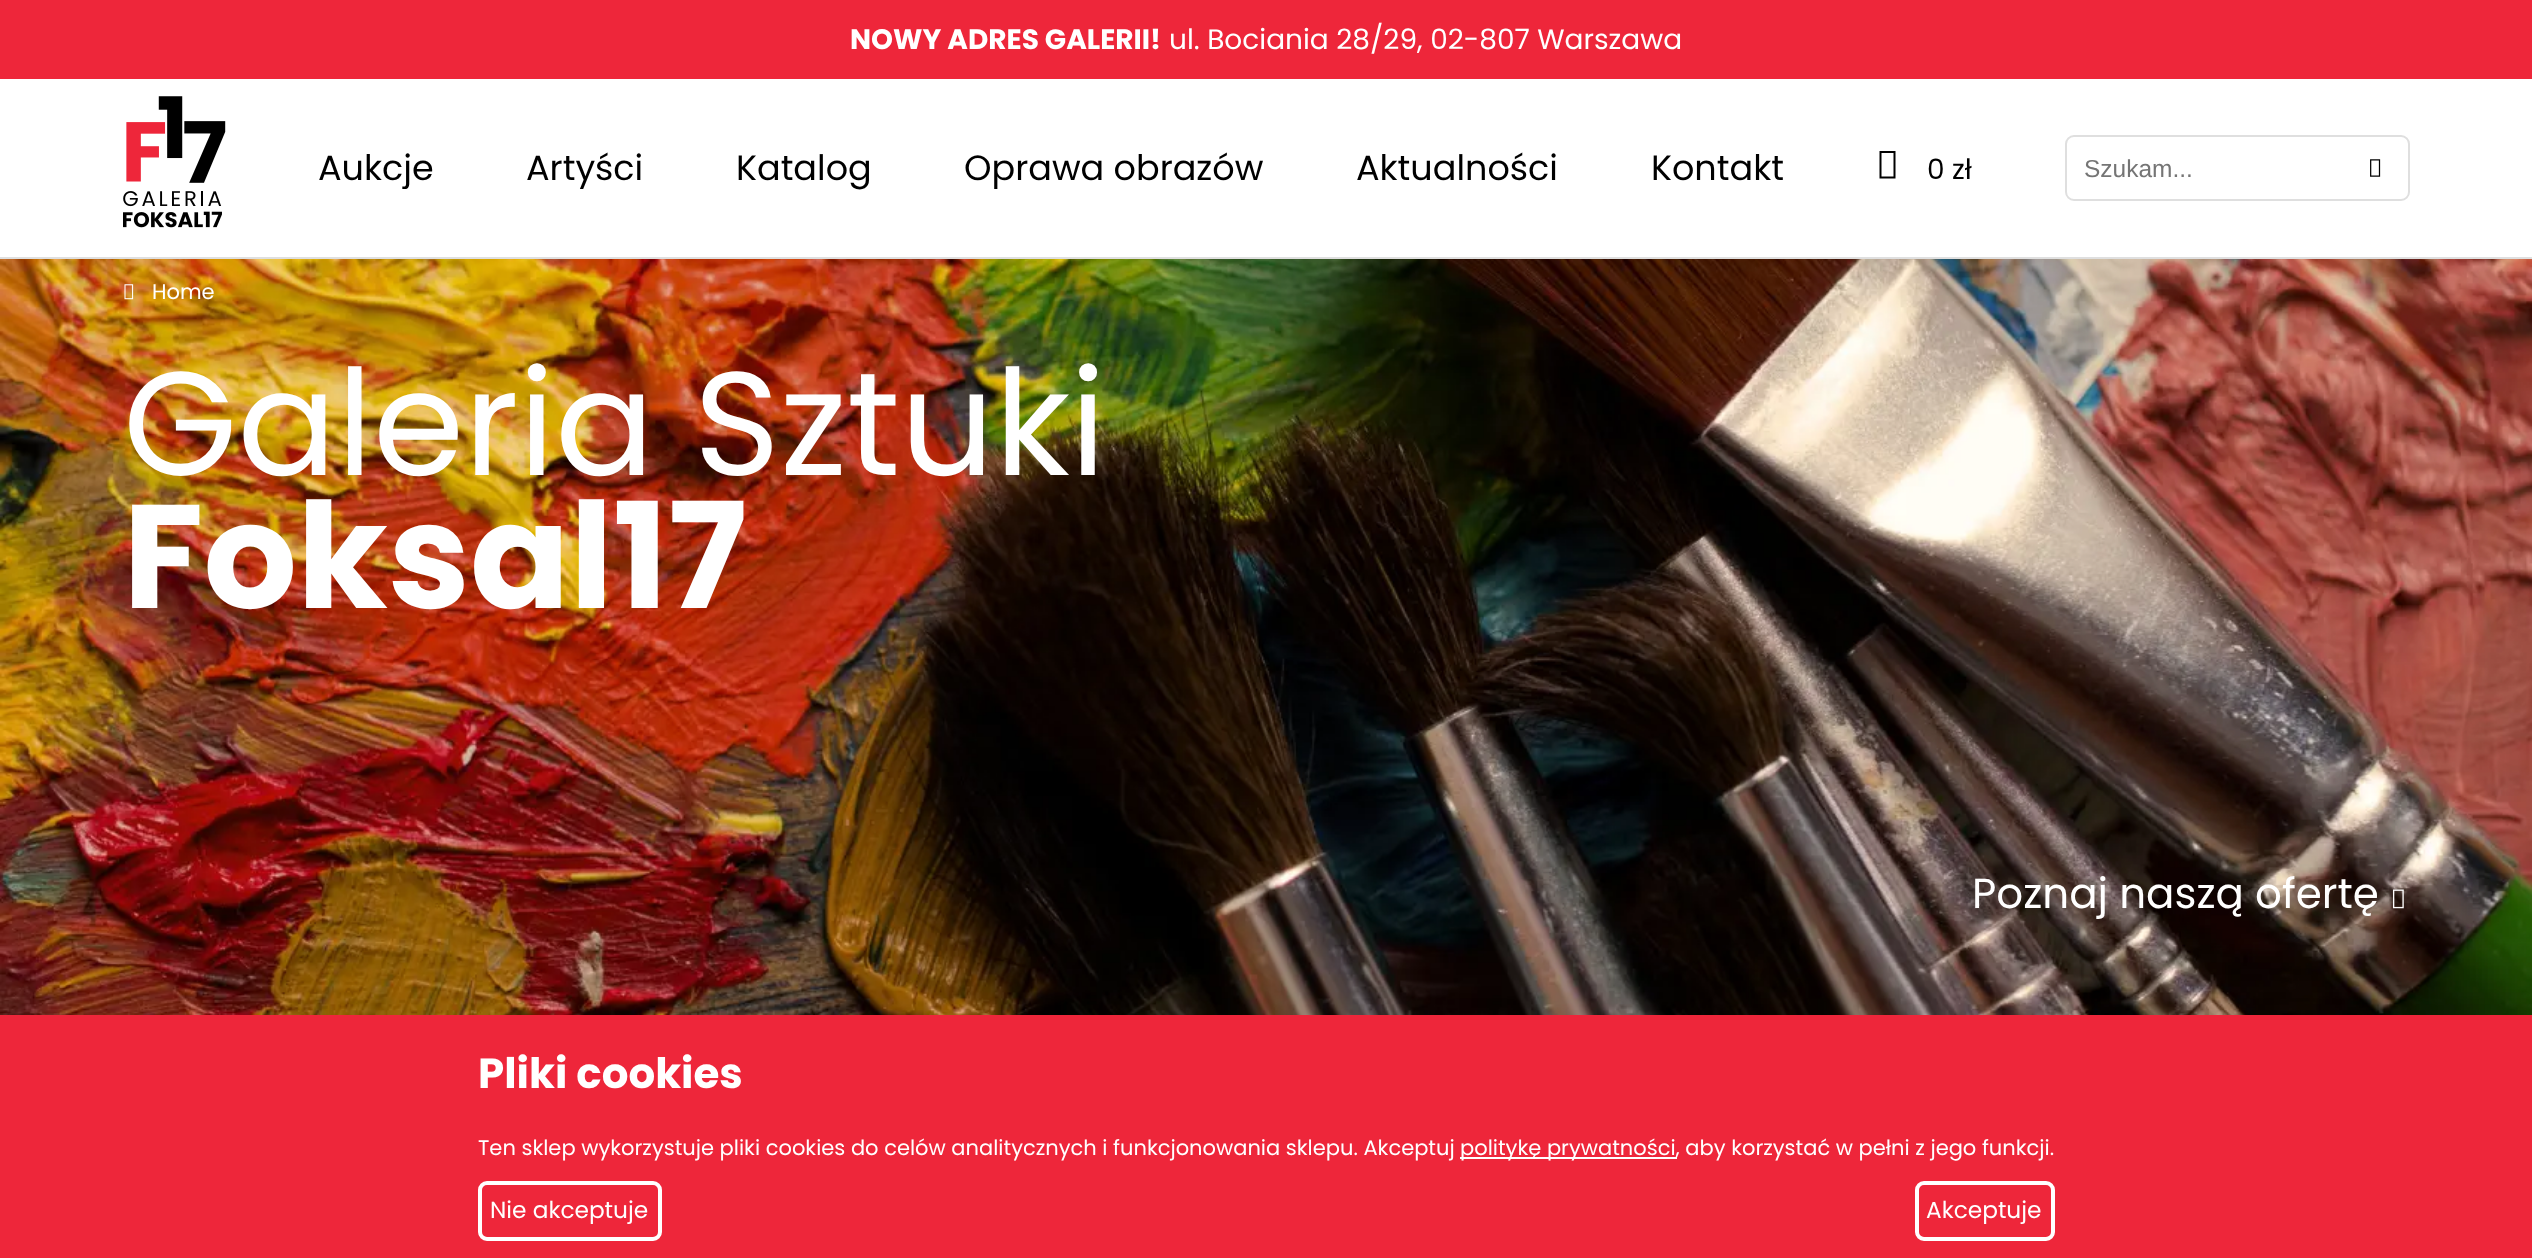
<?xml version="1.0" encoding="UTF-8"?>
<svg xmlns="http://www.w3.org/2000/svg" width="2532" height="1258">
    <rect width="100%" height="100%" fill="#FFFFFF"/>
    <rect x="0" y="0" width="2532" height="79" fill="#EE263A"/>
    <text x="850" y="49" font-family="Poppins" font-size="28" font-weight="700" fill="#FFFFFF">NOWY ADRES GALERII!</text>
    <text x="1169" y="49" font-family="Poppins" font-size="28" fill="#FFFFFF">ul. Bociania 28/29, 02-807 Warszawa</text>
    <rect x="0" y="257" width="2532" height="2" fill="#DFDFDF"/>
    <image x="123" y="96" width="103" height="132" href="img_01.png"/>
    <text x="318" y="180" font-family="Poppins" font-size="35" fill="#000000">Aukcje</text>
    <text x="526" y="180" font-family="Poppins" font-size="35" fill="#000000">Artyści</text>
    <text x="736" y="180" font-family="Poppins" font-size="35" fill="#000000">Katalog</text>
    <text x="964" y="180" font-family="Poppins" font-size="35" fill="#000000">Oprawa obrazów</text>
    <text x="1356" y="180" font-family="Poppins" font-size="35" fill="#000000">Aktualności</text>
    <text x="1651" y="180" font-family="Poppins" font-size="35" fill="#000000">Kontakt</text>
    <path d="M 1879.5 178.5 V 151 H 1895.5 V 178.5 Z M 1881.5 176.5 H 1893.5 V 153 H 1881.5 Z" fill="#000000"/>
    <text x="1927" y="179" font-family="Poppins" font-size="28" fill="#000000">0 zł</text>
    <rect x="2066" y="136" width="343" height="64" rx="8" fill="none" stroke="#DFDFDF" stroke-width="2"/>
    <text x="2084" y="177" font-family="Liberation Sans" font-size="24.5" fill="#757575">Szukam...</text>
    <image x="2370" y="159" width="11" height="18" href="img_02.png"/>
    <image x="0" y="259" width="2532" height="756" href="img_03.png"/>
    <image x="124" y="284" width="10" height="16" href="img_04.png"/>
    <text x="152" y="299" font-family="Poppins" font-size="21" fill="#FFFFFF">Home</text>
    <text x="123" y="475" font-family="Poppins" font-size="147" fill="#FFFFFF">Galeria Sztuki</text>
    <text x="123" y="608" font-family="Poppins" font-size="147" font-weight="700" fill="#FFFFFF">Foksal17</text>
    <text x="1972" y="908" font-family="Poppins" font-size="42" fill="#FFFFFF">Poznaj naszą ofertę</text>
    <image x="2392" y="889" width="12" height="20" href="img_05.png"/>
    <rect x="0" y="1015" width="2532" height="243" fill="#EE263A"/>
    <text x="478" y="1088" font-family="Poppins" font-size="42" font-weight="700" fill="#FFFFFF">Pliki cookies</text>
    <text x="478" y="1155" font-family="Poppins" font-size="21" fill="#FFFFFF">Ten sklep wykorzystuje pliki cookies do celów analitycznych i funkcjonowania sklepu. Akceptuj</text>
    <rect x="1460" y="1157" width="217" height="2" fill="#FFFFFF"/>
    <text x="1460" y="1155" font-family="Poppins" font-size="21" fill="#FFFFFF">politykę prywatności, aby korzystać w pełni z jego funkcji.</text>
    <rect x="480" y="1183" width="180" height="56" rx="7" fill="none" stroke="#FFFFFF" stroke-width="4"/>
    <text x="490" y="1218" font-family="Poppins" font-size="23.25" fill="#FFFFFF">Nie akceptuje</text>
    <rect x="1917" y="1183" width="136" height="56" rx="7" fill="none" stroke="#FFFFFF" stroke-width="4"/>
    <text x="1926" y="1218" font-family="Poppins" font-size="23.25" fill="#FFFFFF">Akceptuje</text>
</svg>
